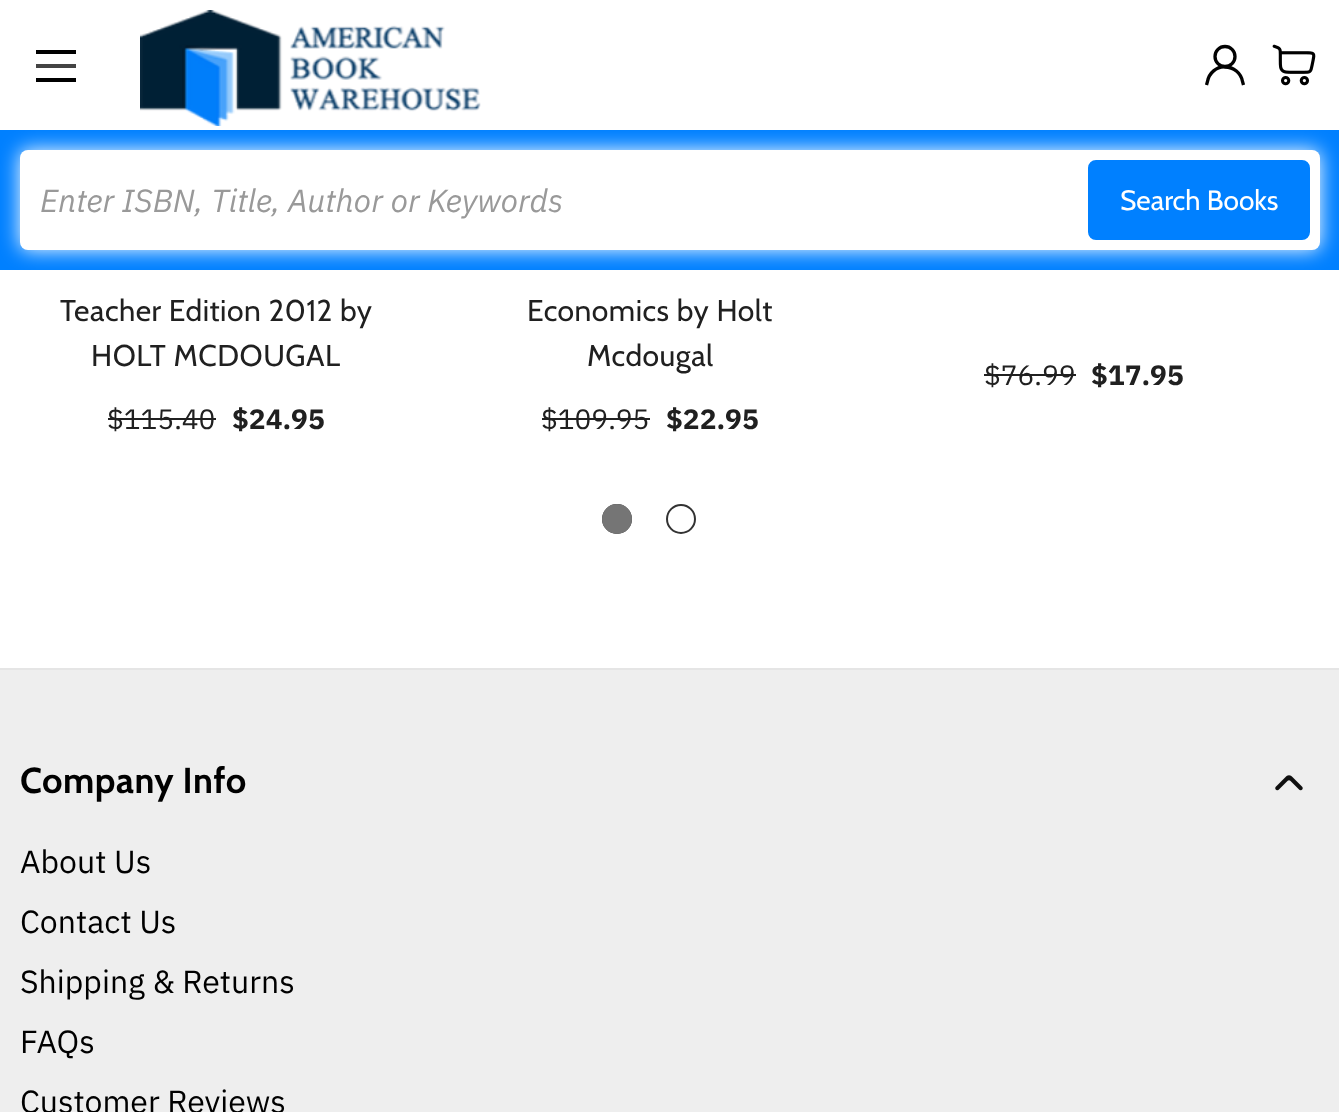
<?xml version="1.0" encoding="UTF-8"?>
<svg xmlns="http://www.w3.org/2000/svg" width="1339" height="1112">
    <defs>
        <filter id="blur1" x="-50%" y="-200%" width="200%" height="500%"><feGaussianBlur stdDeviation="10"/></filter>
    </defs>
    <rect width="100%" height="100%" fill="#FFFFFF"/>
    <rect x="36" y="64" width="40" height="4" fill="#444444"/>
    <rect x="36" y="50" width="40" height="4" fill="#000000"/>
    <rect x="36" y="78" width="40" height="4" fill="#000000"/>
    <rect x="0" y="130" width="1339" height="140" fill="#0080FF"/>
    <rect x="20" y="150" width="1300" height="100" rx="8" fill="#FFFFFF" filter="url(#blur1)"/>
    <image x="140" y="10" width="341" height="116" href="img_01.png"/>
    <circle cx="1225" cy="56.5" r="10" fill="none" stroke="#020202" stroke-width="3.3"/>
    <path d="M 1206.5 85 L 1207.5 81.5 C 1209 73 1216.5 66.5 1225 67 C 1233.5 67 1241 73 1242.5 81.5 L 1243.5 85" fill="none" stroke="#020202" stroke-width="3.3"/>
    <image x="1272" y="44" width="44" height="42" href="img_02.png"/>
    <rect x="20" y="150" width="1300" height="100" rx="8" fill="#FFFFFF"/>
    <text x="40" y="212" font-family="IBM Plex Sans" font-size="32" font-style="italic" fill="#999999">Enter ISBN, Title, Author or Keywords</text>
    <rect x="1089" y="161" width="220" height="78" rx="7" fill="#0080FF" stroke="#0080FF" stroke-width="2"/>
    <text x="1120" y="210" font-family="Cabin" font-size="28" fill="#FFFFFF">Search Books</text>
    <text x="60" y="321" font-family="Cabin" font-size="30" letter-spacing="0.5" fill="#202020">Teacher Edition 2012 by</text>
    <text x="91" y="366" font-family="Cabin" font-size="30" letter-spacing="0.5" fill="#202020">HOLT MCDOUGAL</text>
    <text x="107" y="429" font-family="IBM Plex Sans" font-size="28" fill="#202020">$115.40</text>
    <rect x="108" y="418" width="108" height="2" fill="#202020"/>
    <text x="232" y="429" font-family="IBM Plex Sans" font-size="28" font-weight="700" fill="#202020">$24.95</text>
    <text x="527" y="321" font-family="Cabin" font-size="30" letter-spacing="0.5" fill="#202020">Economics by Holt</text>
    <text x="587" y="366" font-family="Cabin" font-size="30" letter-spacing="0.5" fill="#202020">Mcdougal</text>
    <text x="541" y="429" font-family="IBM Plex Sans" font-size="28" fill="#202020">$109.95</text>
    <rect x="542" y="418" width="108" height="2" fill="#202020"/>
    <text x="666" y="429" font-family="IBM Plex Sans" font-size="28" font-weight="700" fill="#202020">$22.95</text>
    <text x="984" y="385" font-family="IBM Plex Sans" font-size="28" fill="#202020">$76.99</text>
    <rect x="984" y="374" width="92" height="2" fill="#202020"/>
    <text x="1091" y="385" font-family="IBM Plex Sans" font-size="28" font-weight="700" fill="#202020">$17.95</text>
    <circle cx="617" cy="519" r="14" fill="none" stroke="#333333" stroke-width="2"/>
    <circle cx="617" cy="519" r="15" fill="#757575"/>
    <circle cx="681" cy="519" r="14" fill="none" stroke="#333333" stroke-width="2"/>
    <rect x="0" y="670" width="1339" height="442" fill="#EEEEEE"/>
    <rect x="0" y="668" width="1339" height="2" fill="#E5E5E5"/>
    <text x="20" y="793" font-family="Cabin" font-size="36" font-weight="700" letter-spacing="0.5" fill="#000000">Company Info</text>
    <image x="1275" y="775" width="28" height="16" href="img_03.png"/>
    <text font-family="IBM Plex Sans" font-size="32" fill="#000000">
        <tspan x="20" y="873">About Us</tspan>
        <tspan x="20" y="933">Contact Us</tspan>
        <tspan x="20" y="993">Shipping &amp; Returns</tspan>
        <tspan x="20" y="1053">FAQs</tspan>
        <tspan x="20" y="1113">Customer Reviews</tspan>
    </text>
</svg>
